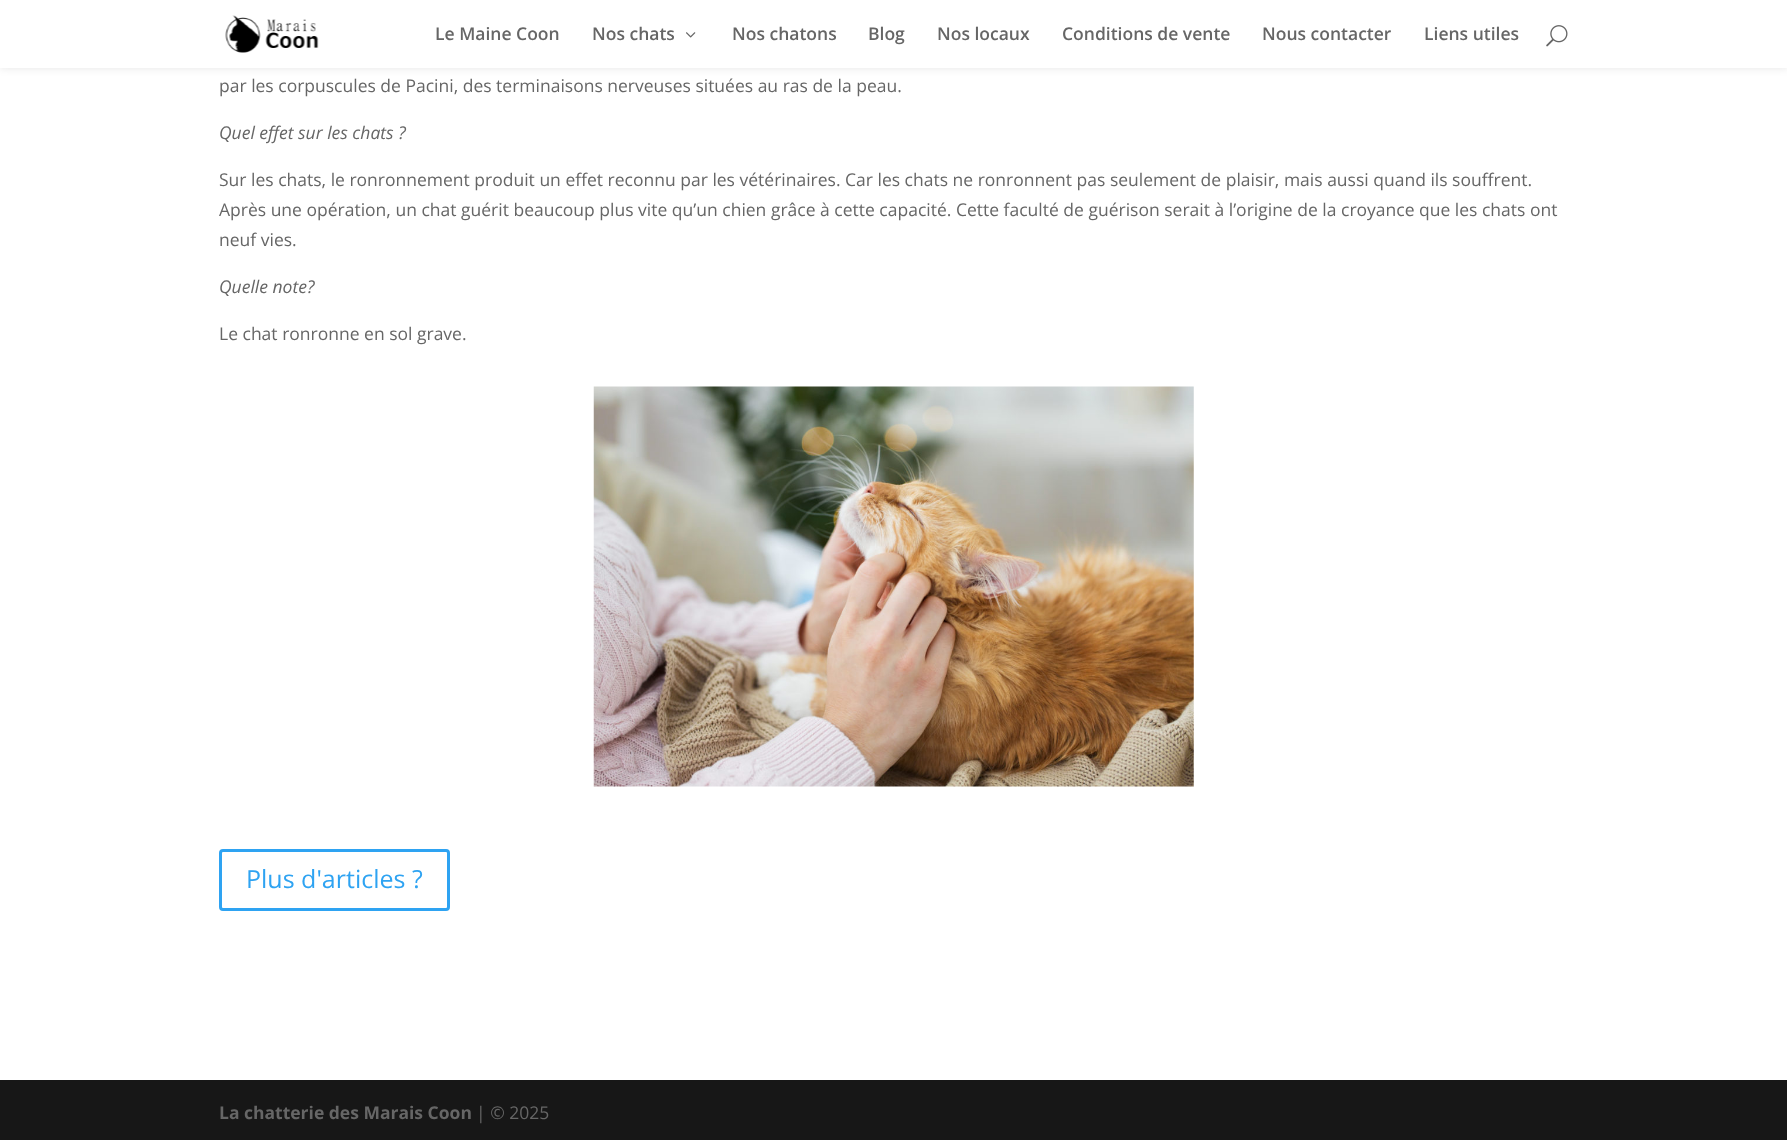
<?xml version="1.0" encoding="UTF-8"?>
<svg xmlns="http://www.w3.org/2000/svg" width="1787" height="1140">
    <defs>
        <filter id="blur1" x="-50%" y="-200%" width="200%" height="500%"><feGaussianBlur stdDeviation="4.5"/></filter>
    </defs>
    <rect width="100%" height="100%" fill="#FFFFFF"/>
    <rect x="0" y="0" width="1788" height="68" fill="#000000" fill-opacity="0.1" filter="url(#blur1)"/>
    <rect x="0" y="0" width="1787" height="68" fill="#FFFFFF"/>
    <image x="225" y="15" width="94" height="38" href="img_01.png"/>
    <text x="435" y="40" font-family="Open Sans" font-size="17.5" font-weight="600" fill="#666666">Le Maine Coon</text>
    <text x="592" y="40" font-family="Open Sans" font-size="17.5" font-weight="600" fill="#666666">Nos chats</text>
    <image x="686" y="32" width="10" height="6" href="img_02.png"/>
    <text x="732" y="40" font-family="Open Sans" font-size="17.5" font-weight="600" fill="#666666">Nos chatons</text>
    <text x="868" y="40" font-family="Open Sans" font-size="17.5" font-weight="600" fill="#666666">Blog</text>
    <text x="937" y="40" font-family="Open Sans" font-size="17.5" font-weight="600" fill="#666666">Nos locaux</text>
    <text x="1062" y="40" font-family="Open Sans" font-size="17.5" font-weight="600" fill="#666666">Conditions de vente</text>
    <text x="1262" y="40" font-family="Open Sans" font-size="17.5" font-weight="600" fill="#666666">Nous contacter</text>
    <text x="1424" y="40" font-family="Open Sans" font-size="17.5" font-weight="600" fill="#666666">Liens utiles</text>
    <image x="1546" y="25" width="22" height="22" href="img_03.png"/>
    <text x="219" y="92" font-family="Open Sans" font-size="17.5" fill="#666666">par les corpuscules de Pacini, des terminaisons nerveuses situées au ras de la peau.</text>
    <text x="219" y="139" font-family="Open Sans" font-size="17.5" font-style="italic" fill="#666666">Quel effet sur les chats ?</text>
    <text font-family="Open Sans" font-size="17.5" fill="#666666">
        <tspan x="219" y="186">Sur les chats, le ronronnement produit un effet reconnu par les vétérinaires. Car les chats ne ronronnent pas seulement de plaisir, mais aussi quand ils souffrent.</tspan>
        <tspan x="219" y="216">Après une opération, un chat guérit beaucoup plus vite qu’un chien grâce à cette capacité. Cette faculté de guérison serait à l’origine de la croyance que les chats ont</tspan>
        <tspan x="219" y="246">neuf vies.</tspan>
    </text>
    <text x="219" y="293" font-family="Open Sans" font-size="17.5" font-style="italic" fill="#666666">Quelle note?</text>
    <text x="219" y="340" font-family="Open Sans" font-size="17.5" fill="#666666">Le chat ronronne en sol grave.</text>
    <image x="593" y="386" width="601" height="401" href="img_04.png"/>
    <rect x="220.5" y="850.5" width="228" height="59" rx="2.5" fill="none" stroke="#2EA3F2" stroke-width="3"/>
    <text x="246" y="888" font-family="Open Sans" font-size="25" fill="#2EA3F2">Plus d'articles ?</text>
    <rect x="0" y="1080" width="1787" height="60" fill="#171717"/>
    <text x="219" y="1119" font-family="Open Sans" font-size="17.5" font-weight="700" fill="#666666">La chatterie des Marais Coon</text>
    <text x="476" y="1119" font-family="Open Sans" font-size="17.5" fill="#666666">| © 2025</text>
</svg>
